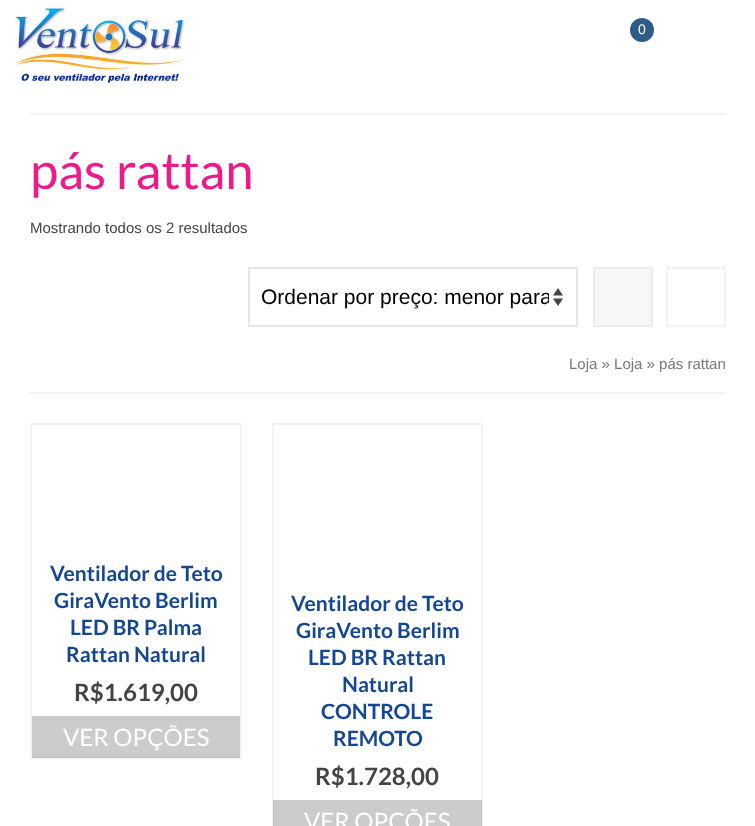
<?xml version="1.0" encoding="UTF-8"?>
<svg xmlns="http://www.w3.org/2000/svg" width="755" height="826">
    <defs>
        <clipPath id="clip1"><rect x="261" y="285" width="288" height="24"/></clipPath>
    </defs>
    <rect width="100%" height="100%" fill="#FFFFFF"/>
    <image x="15" y="7" width="171" height="76" href="img_01.png"/>
    <circle cx="642" cy="30" r="12" fill="#2D5C88"/>
    <text x="638" y="34" font-family="Liberation Sans" font-size="14" fill="#FFFFFF">0</text>
    <rect x="30" y="113" width="696" height="2" fill="#F2F2F2"/>
    <rect x="30" y="392" width="696" height="2" fill="#F2F2F2"/>
    <text x="30" y="189" font-family="Lato" font-size="51" fill="#ED1A8A">pás rattan</text>
    <text x="30" y="233" font-family="Liberation Sans" font-size="15" fill="#444444">Mostrando todos os 2 resultados</text>
    <path d="M 553 295.5 L 558 288 L 563 295.5 Z M 563 298.5 L 558 306 L 553 298.5 Z" fill="#444444"/>
    <rect x="249" y="268" width="328" height="58" fill="none" stroke="#E6E6E6" stroke-width="2"/>
    <g clip-path="url(#clip1)">
        <text x="261" y="304" font-family="Liberation Sans" font-size="21" fill="#000000">Ordenar por preço: menor para</text>
    </g>
    <rect x="594" y="268" width="58" height="58" fill="#F7F7F7" stroke="#EBEBEB" stroke-width="2"/>
    <rect x="667" y="268" width="58" height="58" fill="none" stroke="#F2F2F2" stroke-width="2"/>
    <text x="569" y="369" font-family="Liberation Sans" font-size="15" fill="#777777">Loja » Loja » pás rattan</text>
    <rect x="31" y="424" width="210" height="334" fill="none" stroke="#F2F2F2" stroke-width="2"/>
    <text x="50" y="581" font-family="Lato" font-size="21" font-weight="700" fill="#144793">Ventilador de Teto</text>
    <text x="54" y="608" font-family="Lato" font-size="21" font-weight="700" fill="#144793">GiraVento Berlim</text>
    <text x="70" y="635" font-family="Lato" font-size="21" font-weight="700" fill="#144793">LED BR Palma</text>
    <text x="66" y="662" font-family="Lato" font-size="21" font-weight="700" fill="#144793">Rattan Natural</text>
    <text x="74" y="701" font-family="Lato" font-size="24" font-weight="700" fill="#444444">R$1.619,00</text>
    <rect x="32" y="716" width="208" height="42" fill="#000000" fill-opacity="0.2"/>
    <text x="63" y="746" font-family="Lato" font-size="24" fill="#FFFFFF">VER OPÇÕES</text>
    <rect x="273" y="424" width="209" height="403" fill="none" stroke="#F2F2F2" stroke-width="2"/>
    <text x="291" y="611" font-family="Lato" font-size="21" font-weight="700" fill="#144793">Ventilador de Teto</text>
    <text x="296" y="638" font-family="Lato" font-size="21" font-weight="700" fill="#144793">GiraVento Berlim</text>
    <text x="308" y="665" font-family="Lato" font-size="21" font-weight="700" fill="#144793">LED BR Rattan</text>
    <text x="342" y="692" font-family="Lato" font-size="21" font-weight="700" fill="#144793">Natural</text>
    <text x="321" y="719" font-family="Lato" font-size="21" font-weight="700" fill="#144793">CONTROLE</text>
    <text x="333" y="746" font-family="Lato" font-size="21" font-weight="700" fill="#144793">REMOTO</text>
    <text x="315" y="785" font-family="Lato" font-size="24" font-weight="700" fill="#444444">R$1.728,00</text>
    <rect x="273" y="800" width="209" height="26" fill="#000000" fill-opacity="0.2"/>
    <text x="304" y="830" font-family="Lato" font-size="24" fill="#FFFFFF">VER OPÇÕES</text>
</svg>
